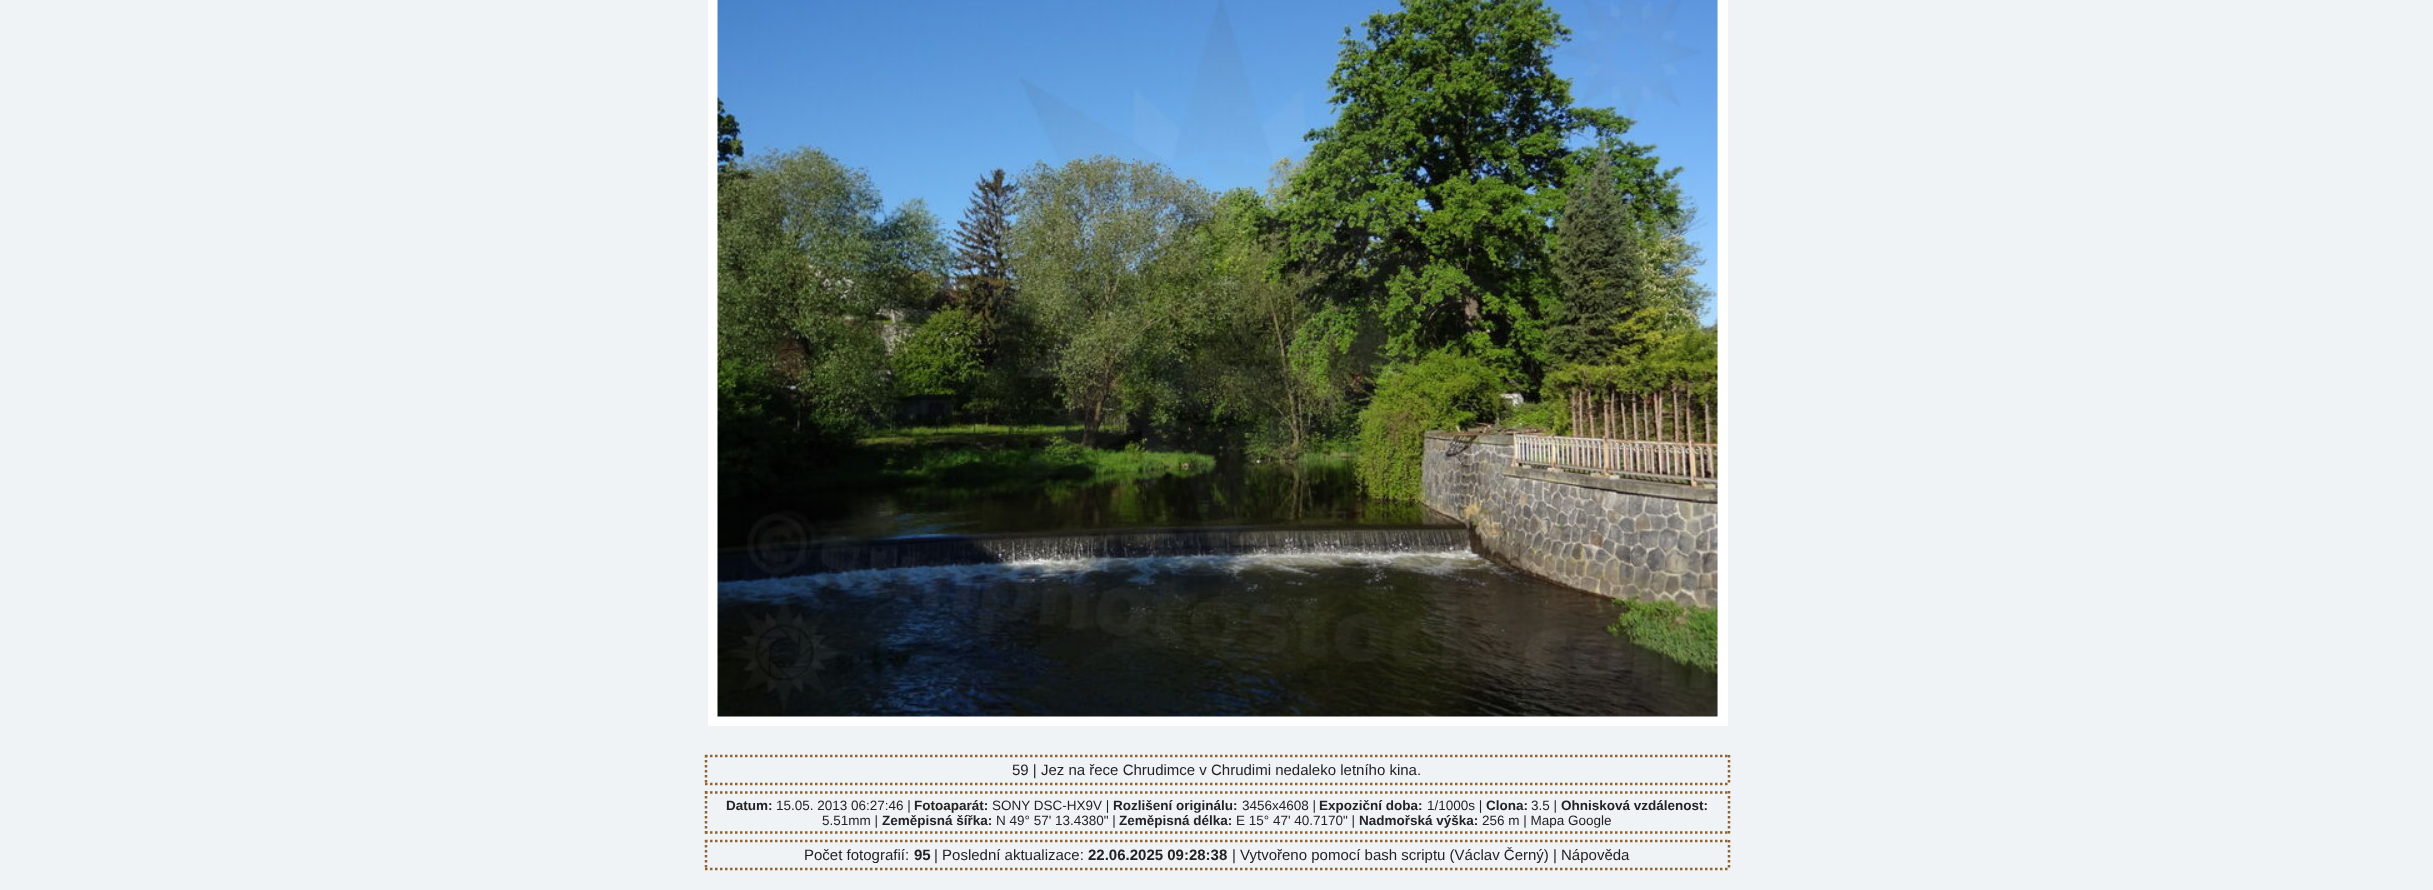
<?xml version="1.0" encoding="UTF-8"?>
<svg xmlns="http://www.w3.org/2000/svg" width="2433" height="890">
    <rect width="100%" height="100%" fill="#F0F3F6"/>
    <rect x="713" y="-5" width="1010" height="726" fill="none" stroke="#FFFFFF" stroke-width="10"/>
    <image x="717" y="0" width="1001" height="717" href="img_01.png"/>
    <path d="M 705 756 H 1730" fill="none" stroke="#8E6233" stroke-width="2.5" stroke-dasharray="2.5 2.5"/>
    <path d="M 1729 755 V 785" fill="none" stroke="#8E6233" stroke-width="2.5" stroke-dasharray="2.5 2.5"/>
    <path d="M 705 784 H 1730" fill="none" stroke="#8E6233" stroke-width="2.5" stroke-dasharray="2.5 2.5"/>
    <path d="M 706 755 V 785" fill="none" stroke="#8E6233" stroke-width="2.5" stroke-dasharray="2.5 2.5"/>
    <text x="1012" y="775" font-family="Liberation Sans" font-size="15" fill="#222222">59 | Jez na řece Chrudimce v Chrudimi nedaleko letního kina.</text>
    <path d="M 705 792.5 H 1730" fill="none" stroke="#8E6233" stroke-width="2.5" stroke-dasharray="2.5 2.5"/>
    <path d="M 1729 791 V 834" fill="none" stroke="#8E6233" stroke-width="2.5" stroke-dasharray="2.5 2.5"/>
    <path d="M 705 832.5 H 1730" fill="none" stroke="#8E6233" stroke-width="2.5" stroke-dasharray="2.5 2.5"/>
    <path d="M 706 791 V 834" fill="none" stroke="#8E6233" stroke-width="2.5" stroke-dasharray="2.5 2.5"/>
    <text x="726" y="810" font-family="Liberation Sans" font-size="13.5" font-weight="700" fill="#222222">Datum:</text>
    <text x="776" y="810" font-family="Liberation Sans" font-size="13.5" fill="#222222">15.05. 2013 06:27:46 |</text>
    <text x="914" y="810" font-family="Liberation Sans" font-size="13.5" font-weight="700" fill="#222222">Fotoaparát:</text>
    <text x="992" y="810" font-family="Liberation Sans" font-size="13.5" fill="#222222">SONY DSC-HX9V |</text>
    <text x="1113" y="810" font-family="Liberation Sans" font-size="13.5" font-weight="700" fill="#222222">Rozlišení originálu:</text>
    <text x="1242" y="810" font-family="Liberation Sans" font-size="13.5" fill="#222222">3456x4608 |</text>
    <text x="1319" y="810" font-family="Liberation Sans" font-size="13.5" font-weight="700" fill="#222222">Expoziční doba:</text>
    <text x="1427" y="810" font-family="Liberation Sans" font-size="13.5" fill="#222222">1/1000s |</text>
    <text x="1486" y="810" font-family="Liberation Sans" font-size="13.5" font-weight="700" fill="#222222">Clona:</text>
    <text x="1531" y="810" font-family="Liberation Sans" font-size="13.5" fill="#222222">3.5 |</text>
    <text x="1561" y="810" font-family="Liberation Sans" font-size="13.5" font-weight="700" fill="#222222">Ohnisková vzdálenost:</text>
    <text x="822" y="825" font-family="Liberation Sans" font-size="13.5" fill="#222222">5.51mm |</text>
    <text x="882" y="825" font-family="Liberation Sans" font-size="13.5" font-weight="700" fill="#222222">Zeměpisná šířka:</text>
    <text x="996" y="825" font-family="Liberation Sans" font-size="13.5" fill="#222222">N 49° 57' 13.4380" |</text>
    <text x="1119" y="825" font-family="Liberation Sans" font-size="13.5" font-weight="700" fill="#222222">Zeměpisná délka:</text>
    <text x="1236" y="825" font-family="Liberation Sans" font-size="13.5" fill="#222222">E 15° 47' 40.7170" |</text>
    <text x="1359" y="825" font-family="Liberation Sans" font-size="13.5" font-weight="700" fill="#222222">Nadmořská výška:</text>
    <text x="1482" y="825" font-family="Liberation Sans" font-size="13.5" fill="#222222">256 m | Mapa Google</text>
    <path d="M 705 841 H 1730" fill="none" stroke="#8E6233" stroke-width="2.5" stroke-dasharray="2.5 2.5"/>
    <path d="M 1729 840 V 870" fill="none" stroke="#8E6233" stroke-width="2.5" stroke-dasharray="2.5 2.5"/>
    <path d="M 705 869 H 1730" fill="none" stroke="#8E6233" stroke-width="2.5" stroke-dasharray="2.5 2.5"/>
    <path d="M 706 840 V 870" fill="none" stroke="#8E6233" stroke-width="2.5" stroke-dasharray="2.5 2.5"/>
    <text x="804" y="860" font-family="Liberation Sans" font-size="15" fill="#222222">Počet fotografií:</text>
    <text x="914" y="860" font-family="Liberation Sans" font-size="15" font-weight="700" fill="#222222">95</text>
    <text x="934" y="860" font-family="Liberation Sans" font-size="15" fill="#222222">| Poslední aktualizace:</text>
    <text x="1088" y="860" font-family="Liberation Sans" font-size="15" font-weight="700" fill="#222222">22.06.2025 09:28:38</text>
    <text x="1232" y="860" font-family="Liberation Sans" font-size="15" fill="#222222">| Vytvořeno pomocí bash scriptu (Václav Černý) | Nápověda</text>
</svg>
